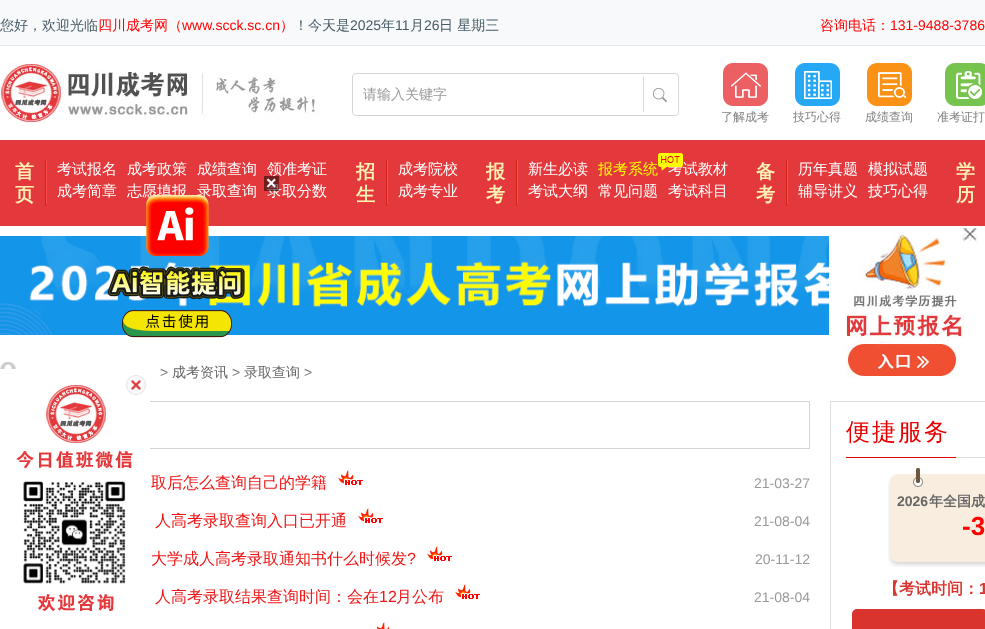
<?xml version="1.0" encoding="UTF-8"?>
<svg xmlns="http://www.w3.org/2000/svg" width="985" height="629">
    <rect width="100%" height="100%" fill="#FFFFFF"/>
    <rect x="0" y="0" width="985" height="45" fill="#F7F9FA"/>
    <rect x="0" y="45" width="985" height="1" fill="#EAEAEA"/>
    <text x="0" y="30" font-family="WenQuanYi Zen Hei" font-size="14" font-weight="500" fill="#445A65">您好，欢迎光临</text>
    <text x="98" y="30" font-family="WenQuanYi Zen Hei" font-size="14" font-weight="500" fill="#FF0000">四川成考网（</text>
    <text x="182" y="30" font-family="Liberation Sans" font-size="14" fill="#FF0000">www.scck.sc.cn</text>
    <text x="280" y="30" font-family="WenQuanYi Zen Hei" font-size="14" font-weight="500" fill="#FF0000">）</text>
    <text x="294" y="30" font-family="WenQuanYi Zen Hei" font-size="14" font-weight="500" fill="#445A65">！今天是</text>
    <text x="350" y="30" font-family="Liberation Sans" font-size="14" fill="#445A65">2025</text>
    <text x="381" y="30" font-family="WenQuanYi Zen Hei" font-size="14" font-weight="500" fill="#445A65">年</text>
    <text x="395" y="30" font-family="Liberation Sans" font-size="14" fill="#445A65">11</text>
    <text x="410" y="30" font-family="WenQuanYi Zen Hei" font-size="14" font-weight="500" fill="#445A65">月</text>
    <text x="424" y="30" font-family="Liberation Sans" font-size="14" fill="#445A65">26</text>
    <text x="439" y="30" font-family="WenQuanYi Zen Hei" font-size="14" font-weight="500" fill="#445A65">日 星期三</text>
    <text x="820" y="30" font-family="WenQuanYi Zen Hei" font-size="14" font-weight="500" fill="#FF0000">咨询电话：</text>
    <text x="890" y="30" font-family="Liberation Sans" font-size="14" fill="#FF0000">131-9488-3786</text>
    <image x="0" y="63" width="319" height="60" href="img_01.png"/>
    <rect x="352.5" y="73.5" width="326" height="42" rx="3.5" fill="none" stroke="#D6D6D6"/>
    <rect x="643" y="77" width="1" height="35" fill="#D6D6D6"/>
    <text x="363" y="99" font-family="WenQuanYi Zen Hei" font-size="14" font-weight="500" fill="#999999">请输入关键字</text>
    <image x="653" y="88" width="14" height="14" href="img_02.png"/>
    <image x="723" y="63" width="45" height="43" href="img_03.png"/>
    <text x="721" y="121" font-family="WenQuanYi Zen Hei" font-size="12" font-weight="500" fill="#808080">了解成考</text>
    <image x="795" y="63" width="45" height="43" href="img_04.png"/>
    <text x="793" y="121" font-family="WenQuanYi Zen Hei" font-size="12" font-weight="500" fill="#808080">技巧心得</text>
    <image x="867" y="63" width="45" height="43" href="img_05.png"/>
    <text x="865" y="121" font-family="WenQuanYi Zen Hei" font-size="12" font-weight="500" fill="#808080">成绩查询</text>
    <image x="945" y="63" width="40" height="43" href="img_06.png"/>
    <text x="937" y="121" font-family="WenQuanYi Zen Hei" font-size="12" font-weight="500" fill="#808080">准考证打</text>
    <rect x="0" y="140" width="985" height="86" fill="#E4393C"/>
    <rect x="45" y="160" width="1" height="46" fill="#D71F14"/>
    <text font-family="WenQuanYi Zen Hei" font-size="19" font-weight="700" fill="#FFF1B3">
        <tspan x="15" y="178">首</tspan>
        <tspan x="15" y="201">页</tspan>
    </text>
    <rect x="46" y="160" width="1" height="44" fill="#FE4D4A"/>
    <text x="57" y="174" font-family="WenQuanYi Zen Hei" font-size="15" font-weight="500" fill="#FFFFFF">考试报名</text>
    <text x="127" y="174" font-family="WenQuanYi Zen Hei" font-size="15" font-weight="500" fill="#FFFFFF">成考政策</text>
    <text x="197" y="174" font-family="WenQuanYi Zen Hei" font-size="15" font-weight="500" fill="#FFFFFF">成绩查询</text>
    <text x="267" y="174" font-family="WenQuanYi Zen Hei" font-size="15" font-weight="500" fill="#FFFFFF">领准考证</text>
    <text x="57" y="196" font-family="WenQuanYi Zen Hei" font-size="15" font-weight="500" fill="#FFFFFF">成考简章</text>
    <text x="127" y="196" font-family="WenQuanYi Zen Hei" font-size="15" font-weight="500" fill="#FFFFFF">志愿填报</text>
    <text x="197" y="196" font-family="WenQuanYi Zen Hei" font-size="15" font-weight="500" fill="#FFFFFF">录取查询</text>
    <text x="267" y="196" font-family="WenQuanYi Zen Hei" font-size="15" font-weight="500" fill="#FFFFFF">录取分数</text>
    <rect x="386" y="160" width="1" height="46" fill="#D71F14"/>
    <text font-family="WenQuanYi Zen Hei" font-size="19" font-weight="700" fill="#FFF1B3">
        <tspan x="356" y="178">招</tspan>
        <tspan x="356" y="201">生</tspan>
    </text>
    <rect x="387" y="160" width="1" height="44" fill="#FE4D4A"/>
    <text font-family="WenQuanYi Zen Hei" font-size="15" font-weight="500" fill="#FFFFFF">
        <tspan x="398" y="174">成考院校</tspan>
        <tspan x="398" y="196">成考专业</tspan>
    </text>
    <rect x="516" y="160" width="1" height="46" fill="#D71F14"/>
    <text font-family="WenQuanYi Zen Hei" font-size="19" font-weight="700" fill="#FFF1B3">
        <tspan x="486" y="178">报</tspan>
        <tspan x="486" y="201">考</tspan>
    </text>
    <rect x="517" y="160" width="1" height="44" fill="#FE4D4A"/>
    <text x="528" y="174" font-family="WenQuanYi Zen Hei" font-size="15" font-weight="500" fill="#FFFFFF">新生必读</text>
    <text x="598" y="174" font-family="WenQuanYi Zen Hei" font-size="15" font-weight="500" fill="#FBF901">报考系统</text>
    <text x="668" y="174" font-family="WenQuanYi Zen Hei" font-size="15" font-weight="500" fill="#FFFFFF">考试教材</text>
    <image x="658" y="153" width="25" height="18" href="img_07.png"/>
    <text x="528" y="196" font-family="WenQuanYi Zen Hei" font-size="15" font-weight="500" fill="#FFFFFF">考试大纲</text>
    <text x="598" y="196" font-family="WenQuanYi Zen Hei" font-size="15" font-weight="500" fill="#FFFFFF">常见问题</text>
    <text x="668" y="196" font-family="WenQuanYi Zen Hei" font-size="15" font-weight="500" fill="#FFFFFF">考试科目</text>
    <rect x="786" y="160" width="1" height="46" fill="#D71F14"/>
    <text font-family="WenQuanYi Zen Hei" font-size="19" font-weight="700" fill="#FFF1B3">
        <tspan x="756" y="178">备</tspan>
        <tspan x="756" y="201">考</tspan>
    </text>
    <rect x="787" y="160" width="1" height="44" fill="#FE4D4A"/>
    <text x="798" y="174" font-family="WenQuanYi Zen Hei" font-size="15" font-weight="500" fill="#FFFFFF">历年真题</text>
    <text x="868" y="174" font-family="WenQuanYi Zen Hei" font-size="15" font-weight="500" fill="#FFFFFF">模拟试题</text>
    <text x="798" y="196" font-family="WenQuanYi Zen Hei" font-size="15" font-weight="500" fill="#FFFFFF">辅导讲义</text>
    <text x="868" y="196" font-family="WenQuanYi Zen Hei" font-size="15" font-weight="500" fill="#FFFFFF">技巧心得</text>
    <text font-family="WenQuanYi Zen Hei" font-size="19" font-weight="700" fill="#FFF1B3">
        <tspan x="956" y="178">学</tspan>
        <tspan x="956" y="201">历</tspan>
    </text>
    <rect x="264" y="176" width="15" height="15" fill="#000000" fill-opacity="0.5"/>
    <text x="266" y="189" font-family="Liberation Sans" font-size="18" font-weight="700" fill="#FFFFFF">×</text>
    <image x="0" y="236" width="829" height="99" href="img_09.png"/>
    <image x="107" y="195" width="138" height="143" href="img_08.png"/>
    <image x="829" y="234" width="156" height="144" href="img_11.png"/>
    <image x="962" y="228" width="16" height="14" href="img_10.png"/>
    <rect x="0.5" y="401.5" width="809" height="47" fill="none" stroke="#D4D2D4"/>
    <rect x="0" y="401" width="150" height="48" fill="#FFFFFF"/>
    <image x="16" y="385" width="117" height="227" href="img_12.png"/>
    <image x="23" y="481" width="103" height="103" href="img_13.png"/>
    <image x="126" y="375" width="20" height="20" href="img_14.png"/>
    <image x="0" y="362" width="16" height="7" href="img_15.png"/>
    <text x="160" y="377" font-family="Liberation Sans" font-size="14" fill="#747474">&gt;</text>
    <text x="172" y="377" font-family="WenQuanYi Zen Hei" font-size="14" font-weight="500" fill="#666666">成考资讯</text>
    <text x="232" y="377" font-family="Liberation Sans" font-size="14" fill="#747474">&gt;</text>
    <text x="244" y="377" font-family="WenQuanYi Zen Hei" font-size="14" font-weight="500" fill="#666666">录取查询</text>
    <text x="304" y="377" font-family="Liberation Sans" font-size="14" fill="#747474">&gt;</text>
    <text x="151" y="488" font-family="WenQuanYi Zen Hei" font-size="16" font-weight="500" fill="#EE1515">取后怎么查询自己的学籍</text>
    <image x="338" y="470" width="25" height="15" href="img_16.png"/>
    <text x="754" y="488" font-family="Liberation Sans" font-size="14" fill="#999999">21-03-27</text>
    <text x="155" y="526" font-family="WenQuanYi Zen Hei" font-size="16" font-weight="500" fill="#EE1515">人高考录取查询入口已开通</text>
    <image x="358" y="508" width="25" height="15" href="img_16.png"/>
    <text x="754" y="526" font-family="Liberation Sans" font-size="14" fill="#999999">21-08-04</text>
    <text x="151" y="564" font-family="WenQuanYi Zen Hei" font-size="16" font-weight="500" fill="#EE1515">大学成人高考录取通知书什么时候发</text>
    <text x="407" y="564" font-family="Liberation Sans" font-size="16" fill="#EE1515">?</text>
    <image x="427" y="546" width="25" height="15" href="img_16.png"/>
    <text x="755" y="564" font-family="Liberation Sans" font-size="14" fill="#999999">20-11-12</text>
    <text x="155" y="602" font-family="WenQuanYi Zen Hei" font-size="16" font-weight="500" fill="#EE1515">人高考录取结果查询时间：会在</text>
    <text x="379" y="602" font-family="Liberation Sans" font-size="16" fill="#EE1515">12</text>
    <text x="396" y="602" font-family="WenQuanYi Zen Hei" font-size="16" font-weight="500" fill="#EE1515">月公布</text>
    <image x="455" y="584" width="25" height="15" href="img_16.png"/>
    <text x="754" y="602" font-family="Liberation Sans" font-size="14" fill="#999999">21-08-04</text>
    <image x="377" y="622" width="13" height="7" href="img_17.png"/>
    <rect x="830.5" y="401.5" width="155" height="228" fill="none" stroke="#DFDEDE"/>
    <rect x="956" y="457" width="29" height="1" fill="#DEDEDE"/>
    <rect x="846" y="457" width="110" height="1" fill="#E60000"/>
    <text x="846" y="440" font-family="WenQuanYi Zen Hei" font-size="24" font-weight="500" letter-spacing="2" fill="#E60000">便捷服务</text>
    <image x="888" y="468" width="97" height="99" href="img_18.png"/>
    <text x="897" y="506" font-family="Liberation Sans" font-size="14" font-weight="700" fill="#666666">2026</text>
    <text x="929" y="506" font-family="WenQuanYi Zen Hei" font-size="14" font-weight="700" fill="#666666">年全国成</text>
    <text x="962" y="535" font-family="Liberation Sans" font-size="26" font-weight="700" fill="#FF0000">-3</text>
    <text x="883" y="594" font-family="WenQuanYi Zen Hei" font-size="16" font-weight="700" fill="#D9342E">【考试时间：</text>
    <text x="979" y="594" font-family="Liberation Sans" font-size="16" font-weight="700" fill="#D9342E">1</text>
    <rect x="852" y="609" width="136" height="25" rx="5" fill="#D9342E"/>
</svg>
